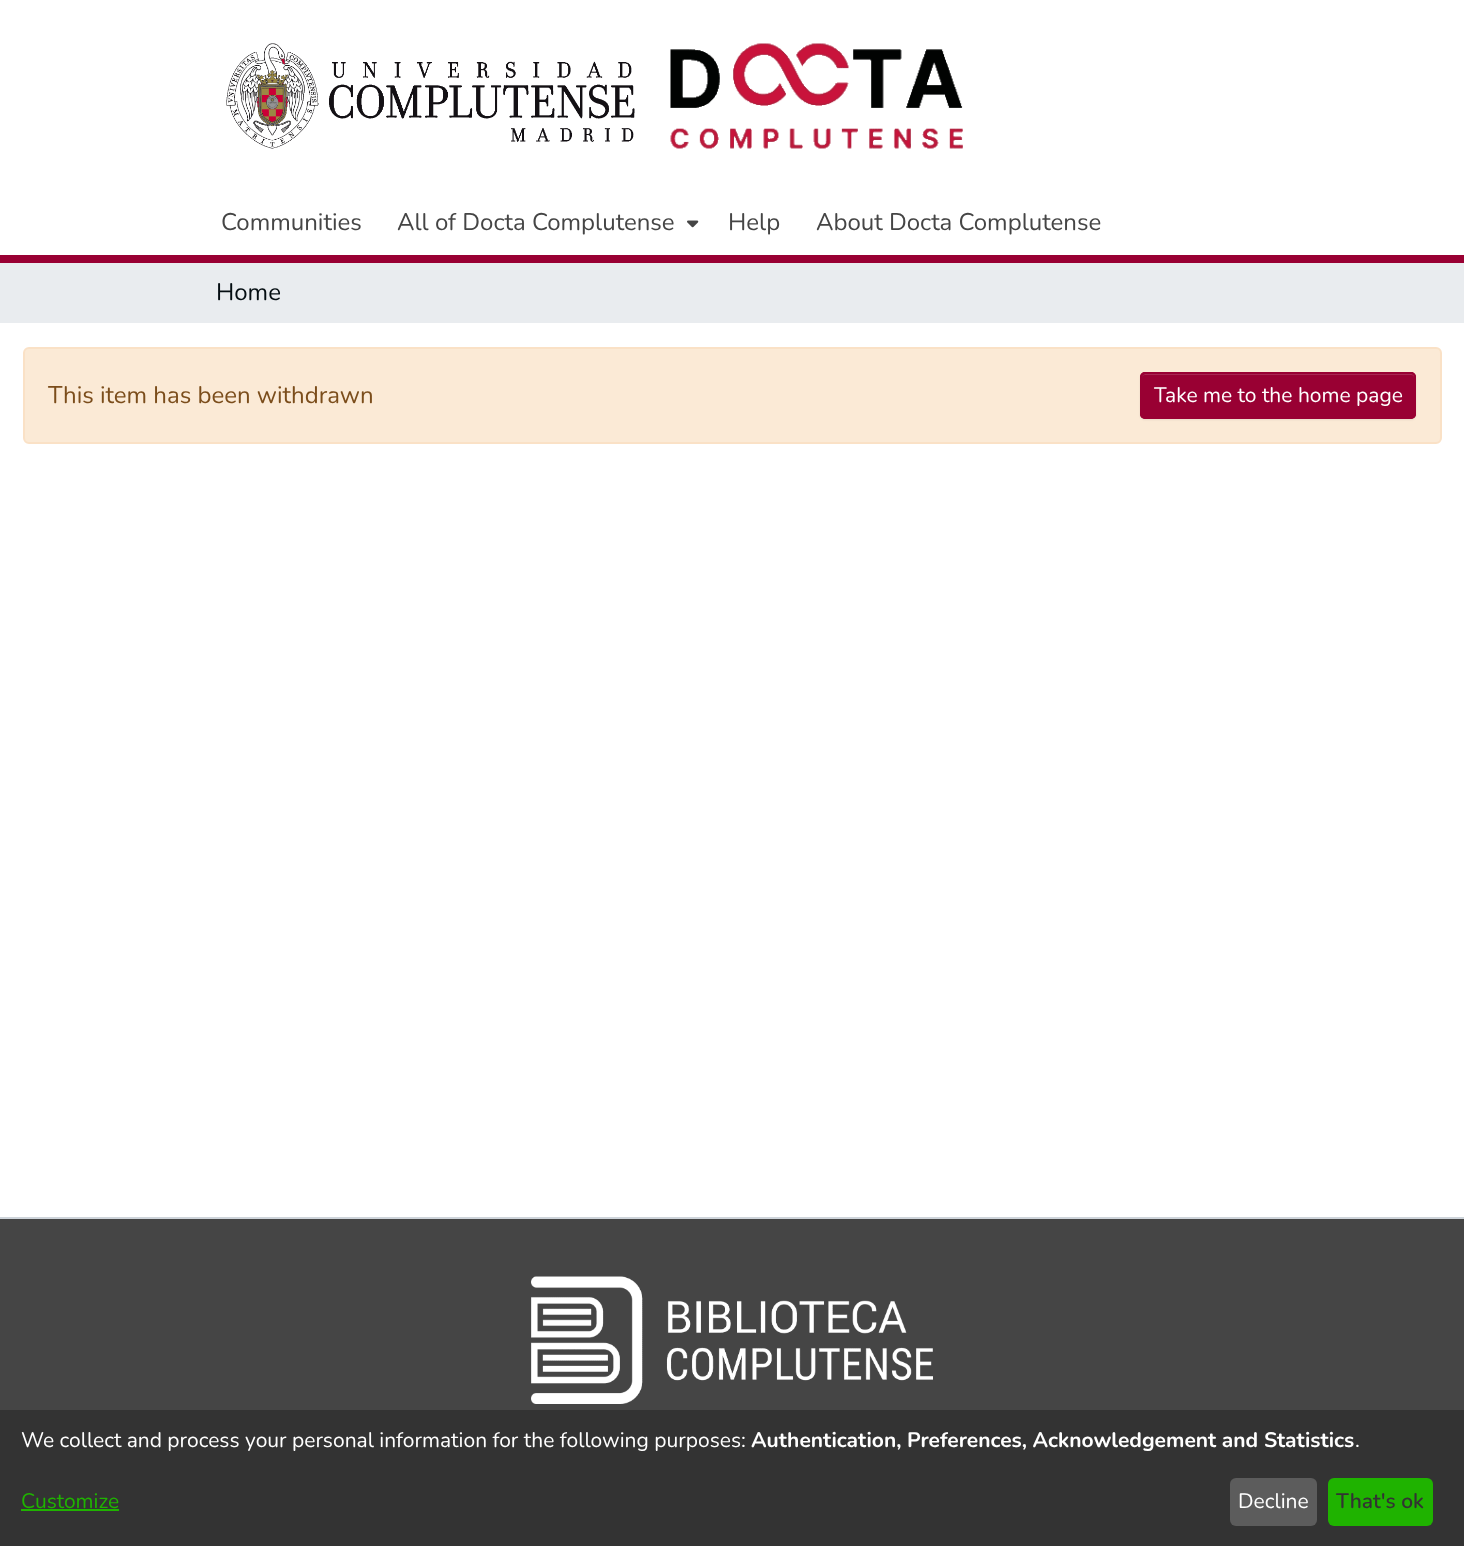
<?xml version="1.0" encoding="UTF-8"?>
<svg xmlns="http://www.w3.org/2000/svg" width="1464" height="1546">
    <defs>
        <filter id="blur1" x="-50%" y="-200%" width="200%" height="500%"><feGaussianBlur stdDeviation="1"/></filter>
    </defs>
    <rect width="100%" height="100%" fill="#FFFFFF"/>
    <rect x="0" y="255" width="1464" height="8" fill="#990033"/>
    <image x="226" y="43" width="409" height="106" href="img_01.png"/>
    <image x="670" y="43" width="293" height="106" href="img_02.png"/>
    <text x="221" y="230" font-family="Nunito" font-size="24" fill="#454545">Communities</text>
    <text x="397" y="230" font-family="Nunito" font-size="24" fill="#454545">All of Docta Complutense</text>
    <image x="687" y="220" width="12" height="8" href="img_03.png"/>
    <text x="728" y="230" font-family="Nunito" font-size="24" fill="#454545">Help</text>
    <text x="816" y="230" font-family="Nunito" font-size="24" fill="#454545">About Docta Complutense</text>
    <rect x="0" y="263" width="1464" height="60" fill="#E9ECEF"/>
    <text x="216" y="300" font-family="Nunito" font-size="24" fill="#040D11">Home</text>
    <rect x="24" y="348" width="1417" height="95" rx="5" fill="#FBEAD6" stroke="#FAE1C6" stroke-width="2"/>
    <text x="48" y="403" font-family="Nunito" font-size="24" fill="#7B4D1B">This item has been withdrawn</text>
    <rect x="1140" y="374" width="276" height="46" rx="5" fill="#000000" fill-opacity="0.07" filter="url(#blur1)"/>
    <rect x="1140" y="372" width="276" height="47" rx="5" fill="#990033"/>
    <path d="M 1145 375 H 1411 C 1413 375 1414 376 1414 378 V 416 L 1415 414 C 1415 411 1415 377 1414 375 L 1412 374 H 1145 L 1143 375 C 1142 376 1142 377 1142 378 C 1142 376 1143 375 1145 375 Z" fill="#A82652"/>
    <rect x="1141" y="373" width="274" height="45" rx="4" fill="none" stroke="#990033" stroke-width="2"/>
    <text x="1154" y="402" font-family="Nunito" font-size="21" fill="#FFFFFF">Take me to the home page</text>
    <rect x="0" y="1219" width="1464" height="191" fill="#454545"/>
    <rect x="0" y="1217" width="1464" height="2" fill="#CED4DA"/>
    <image x="531" y="1276" width="402" height="128" href="img_04.png"/>
    <rect x="0" y="1410" width="1464" height="136" fill="#333333"/>
    <text x="21" y="1447" font-family="Nunito" font-size="21" fill="#FFFFFF">We collect and process your personal information for the following purposes:</text>
    <text x="751" y="1447" font-family="Nunito" font-size="21" font-weight="700" fill="#FFFFFF">Authentication, Preferences, Acknowledgement and Statistics</text>
    <text x="1355" y="1447" font-family="Nunito" font-size="21" fill="#FFFFFF">.</text>
    <text x="21" y="1508" font-family="Nunito" font-size="21" fill="#1FB300">Customize</text>
    <rect x="21" y="1509" width="98" height="2" fill="#1FB300"/>
    <rect x="1230" y="1478" width="87" height="48" rx="6" fill="#5C5C5C"/>
    <text x="1238" y="1508" font-family="Nunito" font-size="21" fill="#FFFFFF">Decline</text>
    <rect x="1328" y="1478" width="105" height="48" rx="6" fill="#1FB300"/>
    <text x="1336" y="1508" font-family="Nunito" font-size="21" font-weight="600" fill="#333333">That's ok</text>
</svg>
